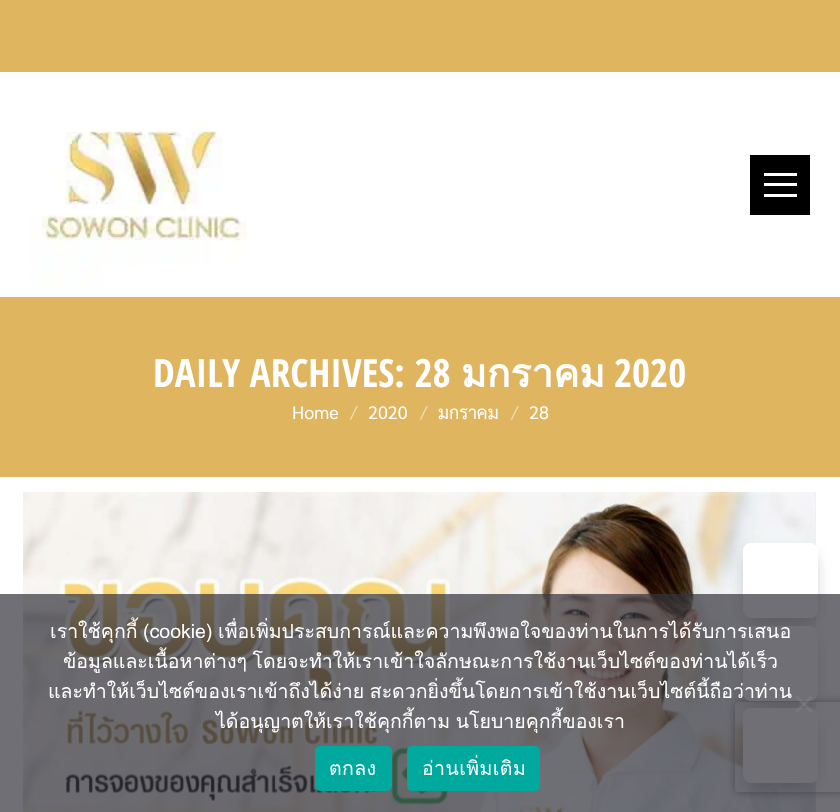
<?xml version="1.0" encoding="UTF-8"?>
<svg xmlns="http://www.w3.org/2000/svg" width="840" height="812">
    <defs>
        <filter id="blur1" x="-50%" y="-200%" width="200%" height="500%"><feGaussianBlur stdDeviation="9"/></filter>
        <filter id="blur2" x="-50%" y="-200%" width="200%" height="500%"><feGaussianBlur stdDeviation="8"/></filter>
        <clipPath id="clip1"><path d="M 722 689 H 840 V 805 H 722 Z M 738 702 H 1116 C 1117.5 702 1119 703.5 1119 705 V 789 C 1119 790.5 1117.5 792 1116 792 H 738 C 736.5 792 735 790.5 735 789 V 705 C 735 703.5 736.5 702 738 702 Z" clip-rule="evenodd"/></clipPath>
        <filter id="blur3" x="-50%" y="-200%" width="200%" height="500%"><feGaussianBlur stdDeviation="4"/></filter>
    </defs>
    <rect width="100%" height="100%" fill="#FFFFFF"/>
    <rect x="0" y="0" width="840" height="72" fill="#DFB55F"/>
    <image x="30" y="121" width="217" height="166" href="img_01.png"/>
    <rect x="750" y="155" width="60" height="60" fill="#000000"/>
    <rect x="764" y="173" width="33" height="3" fill="#FFFFFF"/>
    <rect x="764" y="183" width="33" height="3" fill="#FFFFFF"/>
    <rect x="764" y="194" width="33" height="3" fill="#FFFFFF"/>
    <rect x="0" y="297" width="840" height="180" fill="#DFB55F"/>
    <text x="153" y="387" font-family="Open Sans Condensed" font-size="39" font-weight="700" fill="#FFFFFF">DAILY ARCHIVES: 28</text>
    <text x="461" y="387" font-family="Loma" font-size="39" font-weight="700" fill="#FFFFFF">มกราคม</text>
    <text x="614" y="387" font-family="Open Sans Condensed" font-size="39" font-weight="700" fill="#FFFFFF">2020</text>
    <text x="292" y="419" font-family="Sarabun" font-size="18" fill="#FFFFFF">Home</text>
    <text x="350" y="419" font-family="Sarabun" font-size="18" fill="#EFDAAF">/</text>
    <text x="368" y="419" font-family="Sarabun" font-size="18" fill="#FFFFFF">2020</text>
    <text x="420" y="419" font-family="Sarabun" font-size="18" fill="#EFDAAF">/</text>
    <text x="438" y="419" font-family="Sarabun" font-size="18" fill="#FFFFFF">มกราคม</text>
    <text x="511" y="419" font-family="Sarabun" font-size="18" fill="#EFDAAF">/</text>
    <text x="529" y="419" font-family="Sarabun" font-size="18" fill="#FFFFFF">28</text>
    <image x="23" y="492" width="793" height="320" href="img_02.png"/>
    <rect x="753" y="560" width="54" height="54" fill="#000000" fill-opacity="0.15" filter="url(#blur1)"/>
    <rect x="746" y="554" width="69" height="69" rx="5" fill="#000000" fill-opacity="0.18" filter="url(#blur2)"/>
    <rect x="743" y="543" width="75" height="75" rx="8" fill="#FFFFFF"/>
    <rect x="753" y="642" width="54" height="54" fill="#000000" fill-opacity="0.15" filter="url(#blur1)"/>
    <rect x="746" y="636" width="69" height="69" rx="5" fill="#000000" fill-opacity="0.18" filter="url(#blur2)"/>
    <g clip-path="url(#clip1)">
        <rect x="735" y="702" width="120" height="90" rx="3" fill="#808080" filter="url(#blur3)"/>
    </g>
    <rect x="743" y="626" width="75" height="75" rx="8" fill="#FFFFFF"/>
    <rect x="753" y="725" width="54" height="54" fill="#000000" fill-opacity="0.15" filter="url(#blur1)"/>
    <rect x="746" y="719" width="69" height="69" rx="5" fill="#000000" fill-opacity="0.18" filter="url(#blur2)"/>
    <rect x="743" y="708" width="75" height="75" rx="8" fill="#FFFFFF"/>
    <rect x="0" y="594" width="840" height="218" fill="#32323A" fill-opacity="0.7"/>
    <text x="50" y="638" word-spacing="-1" font-family="Loma" font-size="19.5" fill="#FFFFFF">เราใช้คุกกี้ (cookie) เพื่อเพิ่มประสบการณ์และความพึงพอใจของท่านในการได้รับการเสนอ</text>
    <text x="63" y="668" word-spacing="-1" font-family="Loma" font-size="19.5" fill="#FFFFFF">ข้อมูลและเนื้อหาต่างๆ โดยจะทำให้เราเข้าใจลักษณะการใช้งานเว็บไซต์ของท่านได้เร็ว</text>
    <text x="48" y="698" word-spacing="-1" font-family="Loma" font-size="19.5" fill="#FFFFFF">และทำให้เว็บไซต์ของเราเข้าถึงได้ง่าย สะดวกยิ่งขึ้นโดยการเข้าใช้งานเว็บไซต์นี้ถือว่าท่าน</text>
    <text x="216" y="728" word-spacing="-1" font-family="Loma" font-size="19.5" fill="#FFFFFF">ได้อนุญาตให้เราใช้คุกกี้ตาม นโยบายคุกกี้ของเรา</text>
    <path d="M 811 695 L 813 697.5 L 797 713.5 L 795 711 Z" fill="#808080" fill-opacity="0.5"/>
    <path d="M 795 697.5 L 797 695 L 813 711 L 811 713.5 Z" fill="#808080" fill-opacity="0.5"/>
    <rect x="315" y="746" width="77" height="45" rx="5" fill="#00A99D"/>
    <text x="329" y="775" font-family="Loma" font-size="19.5" letter-spacing="0.4" fill="#FFFFFF">ตกลง</text>
    <rect x="407" y="746" width="133" height="45" rx="5" fill="#00A99D"/>
    <text x="422" y="775" font-family="Loma" font-size="19.5" letter-spacing="0.4" fill="#FFFFFF">อ่านเพิ่มเติม</text>
</svg>
